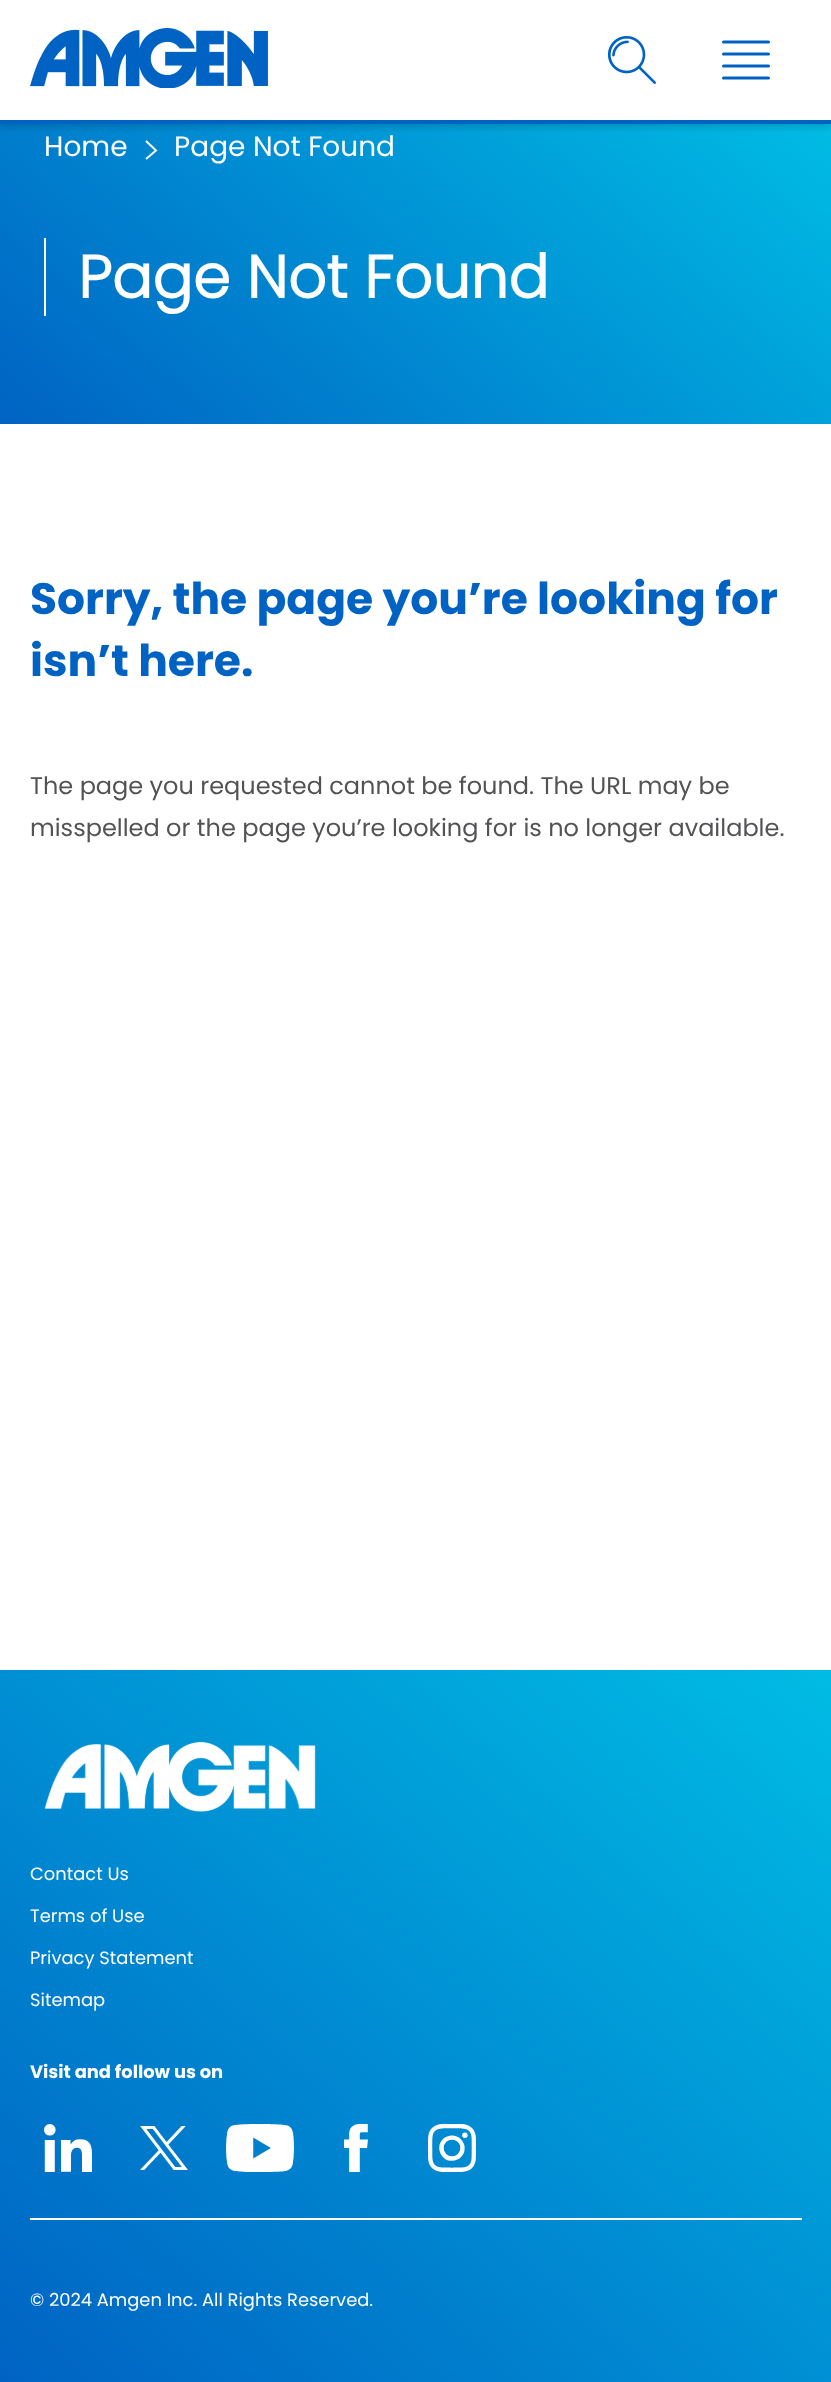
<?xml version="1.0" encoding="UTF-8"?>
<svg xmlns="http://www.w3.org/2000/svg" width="831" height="2382">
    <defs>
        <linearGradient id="g1" gradientUnits="userSpaceOnUse" x1="163" y1="565" x2="669" y2="-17"><stop offset="0" stop-color="#0063C3"/><stop offset="1" stop-color="#00BCE4"/></linearGradient>
        <clipPath id="clip1"><rect x="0" y="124" width="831" height="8"/></clipPath>
        <filter id="blur1" x="-50%" y="-200%" width="200%" height="500%"><feGaussianBlur stdDeviation="5"/></filter>
        <linearGradient id="g2" gradientUnits="userSpaceOnUse" x1="61" y1="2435" x2="771" y2="1617"><stop offset="0" stop-color="#0063C3"/><stop offset="1" stop-color="#00BCE4"/></linearGradient>
    </defs>
    <rect width="100%" height="100%" fill="#FFFFFF"/>
    <rect x="0" y="124" width="831" height="300" fill="url(#g1)"/>
    <path d="M 146 141 L 156 150.5 L 146 159" fill="none" stroke="#FFFFFF" stroke-width="2"/>
    <g clip-path="url(#clip1)">
        <rect x="0" y="2" width="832" height="124" fill="#000000" fill-opacity="0.2" filter="url(#blur1)"/>
    </g>
    <rect x="0" y="120" width="831" height="4" fill="#0063C3"/>
    <image x="30" y="28" width="238" height="60" href="img_01.png"/>
    <image x="608" y="36" width="48" height="48" href="img_02.png"/>
    <path d="M 723.5 42 H 768.5 M 723.5 54 H 768.5 M 723.5 66 H 768.5 M 723.5 78 H 768.5" fill="none" stroke="#0063C3" stroke-width="3" stroke-linecap="round"/>
    <text x="44" y="156" font-family="Poppins" font-size="28" fill="#FFFFFF">Home</text>
    <text x="174" y="156" font-family="Poppins" font-size="28" fill="#FFFFFF">Page Not Found</text>
    <rect x="44" y="238" width="2" height="78" fill="#FFFFFF"/>
    <text x="78" y="298" font-family="'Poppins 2'" font-size="60" font-weight="700" fill="#FFFFFF">Page Not Found</text>
    <text font-family="Poppins" font-size="44" font-weight="700" fill="#0063C3">
        <tspan x="30" y="614">Sorry, the page you’re looking for</tspan>
        <tspan x="30" y="676">isn’t here.</tspan>
    </text>
    <text font-family="Poppins" font-size="24" fill="#545255">
        <tspan x="30" y="794">The page you requested cannot be found. The URL may be</tspan>
        <tspan x="30" y="836">misspelled or the page you’re looking for is no longer available.</tspan>
    </text>
    <rect x="0" y="1670" width="831" height="712" fill="url(#g2)"/>
    <image x="44" y="1741" width="272" height="71" href="img_03.png"/>
    <text x="30" y="1880" font-family="Poppins" font-size="17.9" fill="#FFFFFF">Contact Us</text>
    <text x="30" y="1922" font-family="Poppins" font-size="17.9" fill="#FFFFFF">Terms of Use</text>
    <text x="30" y="1964" font-family="Poppins" font-size="17.9" fill="#FFFFFF">Privacy Statement</text>
    <text x="30" y="2006" font-family="Poppins" font-size="17.9" fill="#FFFFFF">Sitemap</text>
    <text x="30" y="2078" font-family="Poppins" font-size="17.9" font-weight="700" fill="#FFFFFF">Visit and follow us on</text>
    <image x="44" y="2124" width="48" height="48" href="img_04.png"/>
    <image x="140" y="2126" width="48" height="44" href="img_05.png"/>
    <image x="226" y="2124" width="68" height="48" href="img_06.png"/>
    <image x="344" y="2124" width="24" height="48" href="img_07.png"/>
    <image x="428" y="2124" width="48" height="48" href="img_08.png"/>
    <rect x="30" y="2218" width="772" height="2" fill="#FFFFFF"/>
    <text x="30" y="2306" font-family="Poppins" font-size="17.9" fill="#FFFFFF">© 2024 Amgen Inc. All Rights Reserved.</text>
</svg>
